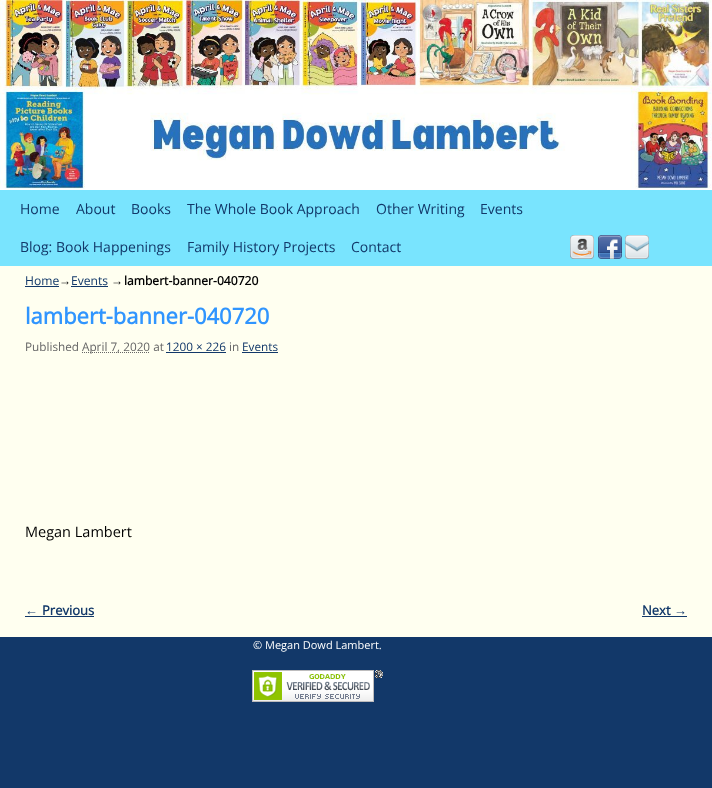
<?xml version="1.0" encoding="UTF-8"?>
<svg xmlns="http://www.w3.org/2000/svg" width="712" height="788">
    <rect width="100%" height="100%" fill="#123869"/>
    <rect x="0" y="266" width="712" height="371" fill="#FFFFF0"/>
    <image x="0" y="0" width="712" height="190" href="img_01.png"/>
    <rect x="0" y="190" width="712" height="76" fill="#79E4FE"/>
    <text x="20" y="214" font-family="Open Sans" font-size="14" fill="#123869">Home</text>
    <text x="76" y="214" font-family="Open Sans" font-size="14" fill="#123869">About</text>
    <text x="131" y="214" font-family="Open Sans" font-size="14" fill="#123869">Books</text>
    <text x="187" y="214" font-family="Open Sans" font-size="14" fill="#123869">The Whole Book Approach</text>
    <text x="376" y="214" font-family="Open Sans" font-size="14" fill="#123869">Other Writing</text>
    <text x="480" y="214" font-family="Open Sans" font-size="14" fill="#123869">Events</text>
    <text x="20" y="252" font-family="Open Sans" font-size="14" fill="#123869">Blog: Book Happenings</text>
    <text x="187" y="252" font-family="Open Sans" font-size="14" fill="#123869">Family History Projects</text>
    <text x="351" y="252" font-family="Open Sans" font-size="14" fill="#123869">Contact</text>
    <image x="570" y="235" width="24" height="24" href="img_02.png"/>
    <image x="598" y="235" width="24" height="24" href="img_03.png"/>
    <image x="625" y="235" width="24" height="24" href="img_04.png"/>
    <text x="25" y="285" font-family="Open Sans" font-size="12.1" fill="#123869">Home</text>
    <text x="59" y="285" font-family="Liberation Sans" font-size="12.1" fill="#000000">→</text>
    <rect x="25" y="286" width="34" height="1" fill="#123869"/>
    <rect x="71" y="286" width="37" height="1" fill="#123869"/>
    <text x="71" y="285" font-family="Open Sans" font-size="12.1" fill="#123869">Events</text>
    <text x="111" y="285" font-family="Liberation Sans" font-size="12.1" fill="#000000">→</text>
    <text x="124" y="285" font-family="Open Sans" font-size="12.1" font-weight="700" fill="#000000">lambert-banner-040720</text>
    <text x="25" y="324" font-family="Open Sans" font-size="22" font-weight="700" fill="#3095FE">lambert-banner-040720</text>
    <text x="25" y="351" font-family="Open Sans" font-size="11.75" fill="#666666">Published</text>
    <path d="M 82 352.5 H 149.5" fill="none" stroke="#666666" stroke-dasharray="1 1"/>
    <text x="82" y="351" font-family="Open Sans" font-size="11.75" fill="#666666">April 7, 2020 at</text>
    <text x="166" y="351" font-family="Open Sans" font-size="11.75" fill="#123869">1200 × 226</text>
    <rect x="166" y="352" width="60" height="1" fill="#123869"/>
    <text x="229" y="351" font-family="Open Sans" font-size="11.75" fill="#666666">in</text>
    <text x="242" y="351" font-family="Open Sans" font-size="11.75" fill="#123869">Events</text>
    <rect x="242" y="352" width="36" height="1" fill="#123869"/>
    <text x="25" y="537" font-family="Open Sans" font-size="14.5" fill="#000000">Megan Lambert</text>
    <text x="25" y="615" font-family="Liberation Sans" font-size="13" font-weight="700" fill="#123869">←</text>
    <rect x="25" y="616" width="69" height="1" fill="#123869"/>
    <text x="42" y="615" font-family="Open Sans" font-size="13" font-weight="700" fill="#123869">Previous</text>
    <text x="642" y="615" font-family="Open Sans" font-size="13" font-weight="700" fill="#123869">Next</text>
    <text x="674" y="615" font-family="Liberation Sans" font-size="13" font-weight="700" fill="#123869">→</text>
    <rect x="642" y="616" width="45" height="1" fill="#123869"/>
    <text x="253" y="649" font-family="Open Sans" font-size="11" fill="#FFFFFF">© Megan Dowd Lambert.</text>
    <image x="252" y="670" width="131" height="32" href="img_05.png"/>
</svg>
